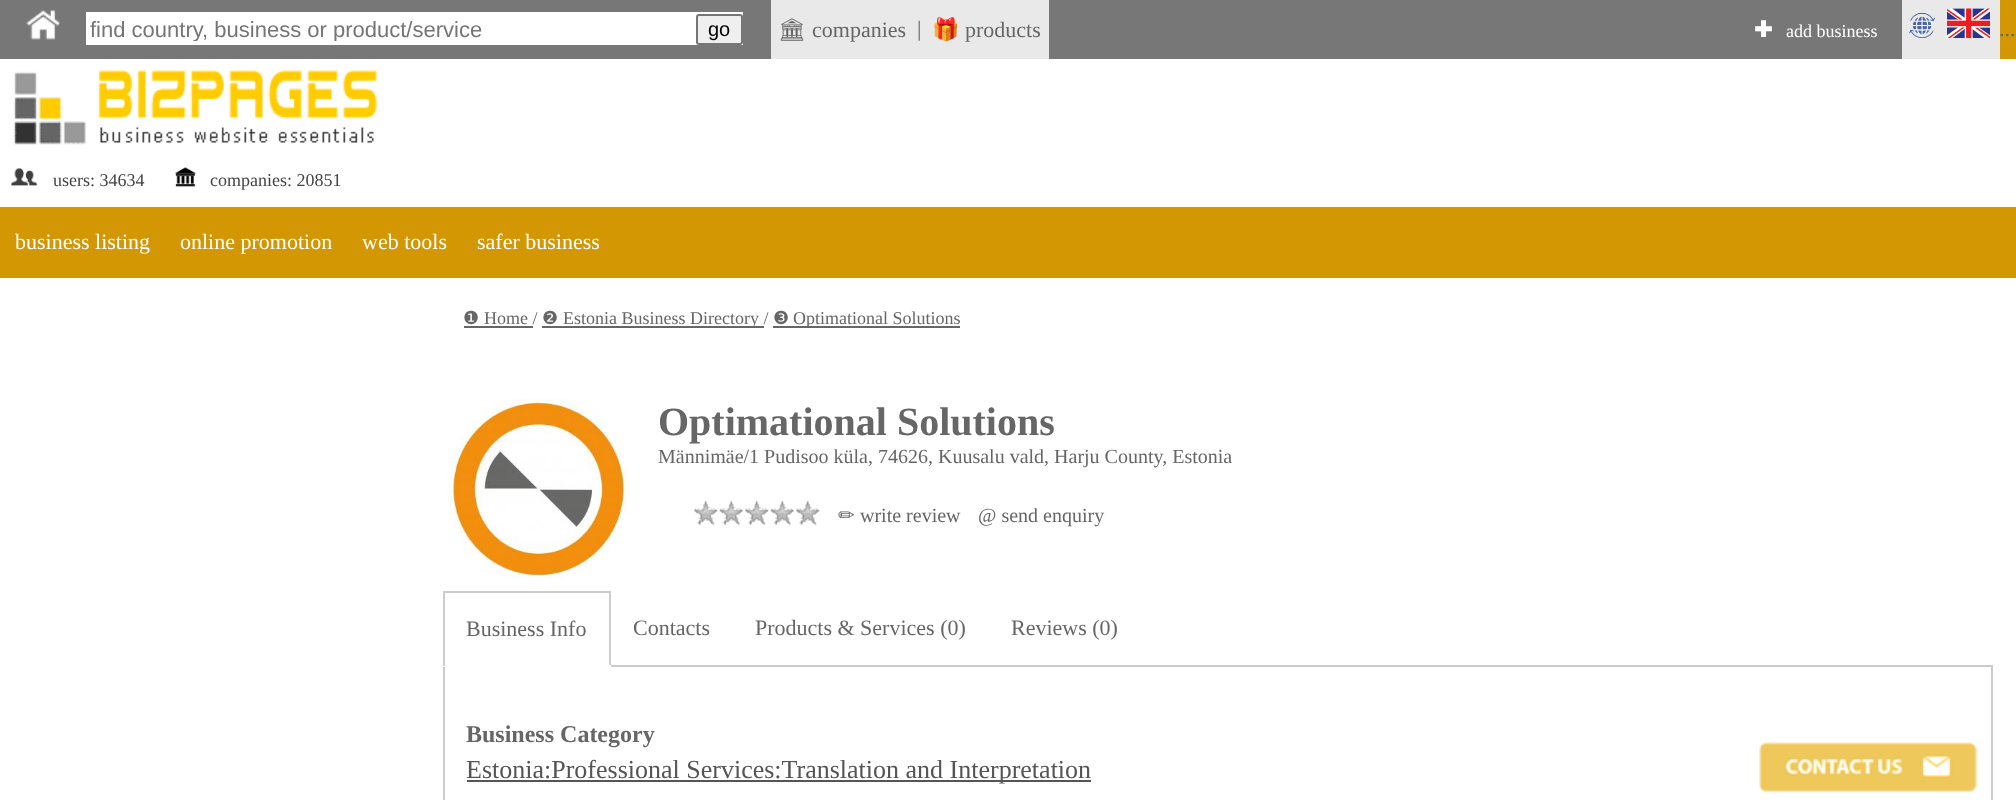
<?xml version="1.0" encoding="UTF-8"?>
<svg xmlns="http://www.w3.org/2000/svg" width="2016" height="800">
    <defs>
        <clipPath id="clip1"><rect x="90" y="17" width="581" height="24"/></clipPath>
    </defs>
    <rect width="100%" height="100%" fill="#FFFFFF"/>
    <rect x="0" y="0" width="1902" height="59" fill="#777777"/>
    <image x="26" y="10" width="35" height="30" href="img_01.png"/>
    <rect x="86" y="12" width="657" height="33" fill="#FFFFFF"/>
    <g clip-path="url(#clip1)">
        <text x="90" y="37" font-family="Liberation Sans" font-size="22" fill="#757575">find country, business or product/service</text>
    </g>
    <rect x="697" y="15" width="45" height="29" rx="2" fill="#EFEFEF" stroke="#767676" stroke-width="2"/>
    <text x="708" y="36" font-family="Liberation Sans" font-size="20" fill="#000000">go</text>
    <rect x="771" y="0" width="278" height="59" fill="#E9E9E9"/>
    <text x="778" y="37" font-family="Noto Emoji" font-size="22" fill="#666666">🏛</text>
    <text x="812" y="37" font-family="Liberation Serif" font-size="22" fill="#666666">companies</text>
    <text x="917" y="36" font-family="Liberation Serif" font-size="22" fill="#666666">|</text>
    <text x="932" y="37" font-family="Noto Color Emoji" font-size="22" fill="#666666">🎁</text>
    <text x="965" y="37" font-family="Liberation Serif" font-size="22" fill="#666666">products</text>
    <text x="1754" y="37" font-family="DejaVu Sans" font-size="22" font-weight="700" fill="#FFFFFF">✚</text>
    <text x="1786" y="37" font-family="Liberation Serif" font-size="18" fill="#FFFFFF">add business</text>
    <rect x="1902" y="0" width="98" height="59" fill="#E9E9E9"/>
    <image x="1909" y="8" width="81" height="30" href="img_02.png"/>
    <rect x="2000" y="0" width="16" height="59" fill="#D39703"/>
    <text x="1999" y="36" font-family="Liberation Serif" font-size="22" fill="#666666">...</text>
    <image x="13" y="70" width="364" height="75" href="img_03.png"/>
    <image x="10" y="168" width="28" height="18" href="img_04.png"/>
    <text x="53" y="186" font-family="Liberation Serif" font-size="18" fill="#444444">users: 34634</text>
    <image x="175" y="167" width="21" height="20" href="img_05.png"/>
    <text x="210" y="186" font-family="Liberation Serif" font-size="18" fill="#444444">companies: 20851</text>
    <rect x="0" y="207" width="2016" height="71" fill="#D39703"/>
    <text x="15" y="249" font-family="Liberation Serif" font-size="22" fill="#FFFFFF">business listing</text>
    <text x="180" y="249" font-family="Liberation Serif" font-size="22" fill="#FFFFFF">online promotion</text>
    <text x="362" y="249" font-family="Liberation Serif" font-size="22" fill="#FFFFFF">web tools</text>
    <text x="477" y="249" font-family="Liberation Serif" font-size="22" fill="#FFFFFF">safer business</text>
    <text x="463" y="324" font-family="DejaVu Sans" font-size="18" fill="#666666">❶</text>
    <text x="484" y="324" font-family="Liberation Serif" font-size="18" fill="#666666">Home /</text>
    <rect x="464" y="326" width="69" height="2" fill="#666666"/>
    <text x="542" y="324" font-family="DejaVu Sans" font-size="18" fill="#666666">❷</text>
    <rect x="542" y="326" width="222" height="2" fill="#666666"/>
    <text x="563" y="324" font-family="Liberation Serif" font-size="18" fill="#666666">Estonia Business Directory /</text>
    <text x="773" y="324" font-family="DejaVu Sans" font-size="18" fill="#666666">❸</text>
    <rect x="773" y="326" width="187" height="2" fill="#666666"/>
    <text x="793" y="324" font-family="Liberation Serif" font-size="18" fill="#666666">Optimational Solutions</text>
    <image x="448" y="399" width="181" height="180" href="img_06.png"/>
    <text x="658" y="435" font-family="Liberation Serif" font-size="40" font-weight="700" fill="#666666">Optimational Solutions</text>
    <text x="658" y="463" font-family="Liberation Serif" font-size="20" fill="#666666">Männimäe/1 Pudisoo küla, 74626, Kuusalu vald, Harju County, Estonia</text>
    <image x="694" y="501" width="126" height="25" href="img_07.png"/>
    <text x="838" y="522" font-family="DejaVu Sans" font-size="20" fill="#666666">✏</text>
    <text x="860" y="522" font-family="Liberation Serif" font-size="20" fill="#666666">write review</text>
    <text x="978" y="522" font-family="Liberation Serif" font-size="20" fill="#666666">@ send enquiry</text>
    <rect x="443" y="591" width="168" height="2" fill="#CCCCCC"/>
    <rect x="1991" y="665" width="2" height="135" fill="#CCCCCC"/>
    <rect x="609" y="665" width="1383" height="2" fill="#CCCCCC"/>
    <rect x="609" y="591" width="2" height="75" fill="#CCCCCC"/>
    <rect x="443" y="665" width="2" height="135" fill="#CCCCCC"/>
    <rect x="443" y="665" width="168" height="2" fill="#FFFFFF"/>
    <rect x="443" y="591" width="2" height="75" fill="#CCCCCC"/>
    <text x="466" y="636" font-family="Liberation Serif" font-size="22" fill="#666666">Business Info</text>
    <text x="633" y="635" font-family="Liberation Serif" font-size="22" fill="#666666">Contacts</text>
    <text x="755" y="635" font-family="Liberation Serif" font-size="22" fill="#666666">Products &amp; Services (0)</text>
    <text x="1011" y="635" font-family="Liberation Serif" font-size="22" fill="#666666">Reviews (0)</text>
    <text x="466" y="742" font-family="Liberation Serif" font-size="24" font-weight="700" fill="#666666">Business Category</text>
    <rect x="467" y="780" width="624" height="2" fill="#555555"/>
    <text x="466" y="778" font-family="Liberation Serif" font-size="26" fill="#555555">Estonia:Professional Services:Translation and Interpretation</text>
    <image x="1759" y="742" width="219" height="51" href="img_08.png"/>
</svg>
